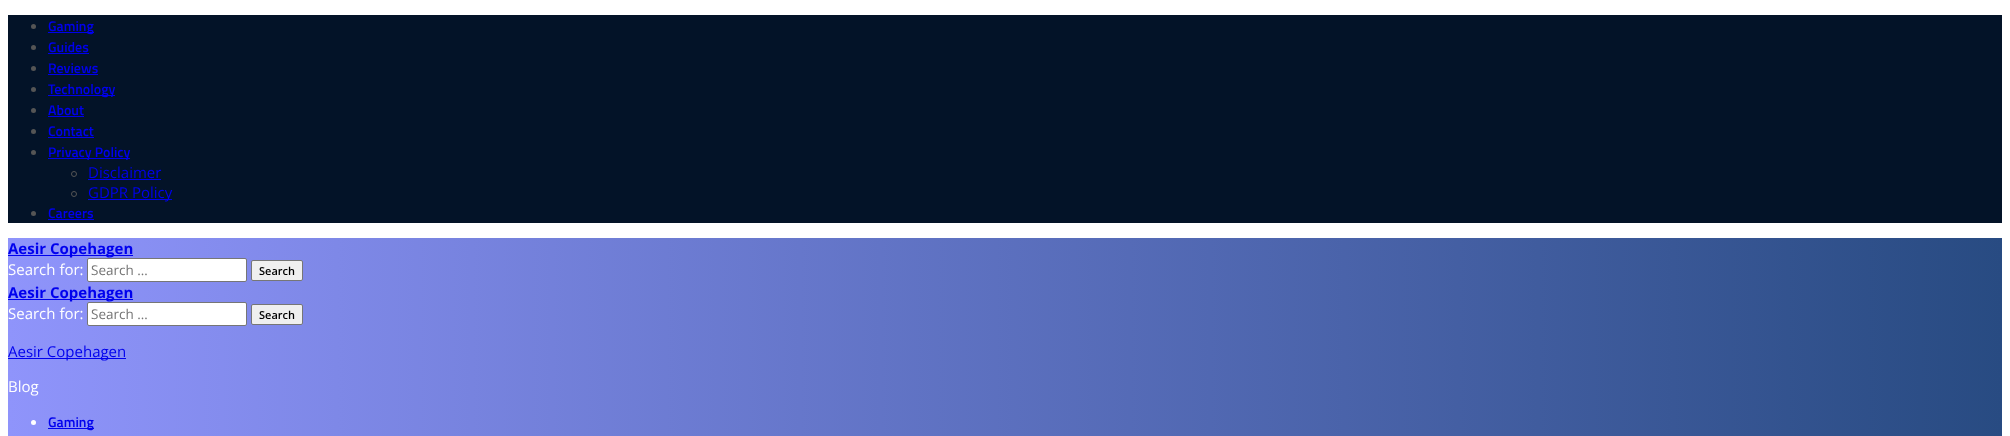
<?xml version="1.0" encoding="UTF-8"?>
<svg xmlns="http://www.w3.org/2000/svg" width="2010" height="436">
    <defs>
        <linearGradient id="g1" gradientUnits="userSpaceOnUse" x1="8" y1="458" x2="2002" y2="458"><stop offset="0" stop-color="#8F94FB"/><stop offset="1" stop-color="#284B82"/></linearGradient>
    </defs>
    <rect width="100%" height="100%" fill="#FFFFFF"/>
    <rect x="8" y="15" width="1994" height="208" fill="#031328"/>
    <circle cx="33.5" cy="26.5" r="2.5" fill="#555555"/>
    <rect x="48" y="32" width="46" height="1" fill="#0000EE"/>
    <text x="48" y="31" font-family="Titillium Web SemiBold" font-size="14" font-weight="600" fill="#0000EE">Gaming</text>
    <circle cx="33.5" cy="47.5" r="2.5" fill="#555555"/>
    <text x="48" y="52" font-family="Titillium Web SemiBold" font-size="14" font-weight="600" fill="#0000EE">Guides</text>
    <rect x="48" y="53" width="41" height="1" fill="#0000EE"/>
    <circle cx="33.5" cy="68.5" r="2.5" fill="#555555"/>
    <text x="48" y="73" font-family="Titillium Web SemiBold" font-size="14" font-weight="600" fill="#0000EE">Reviews</text>
    <rect x="48" y="74" width="50" height="1" fill="#0000EE"/>
    <circle cx="33.5" cy="89.5" r="2.5" fill="#555555"/>
    <rect x="48" y="95" width="67" height="1" fill="#0000EE"/>
    <text x="48" y="94" font-family="Titillium Web SemiBold" font-size="14" font-weight="600" fill="#0000EE">Technology</text>
    <circle cx="33.5" cy="110.5" r="2.5" fill="#555555"/>
    <text x="48" y="115" font-family="Titillium Web SemiBold" font-size="14" font-weight="600" fill="#0000EE">About</text>
    <rect x="48" y="116" width="36" height="1" fill="#0000EE"/>
    <circle cx="33.5" cy="131.5" r="2.5" fill="#555555"/>
    <text x="48" y="136" font-family="Titillium Web SemiBold" font-size="14" font-weight="600" fill="#0000EE">Contact</text>
    <rect x="48" y="137" width="46" height="1" fill="#0000EE"/>
    <circle cx="33.5" cy="152.5" r="2.5" fill="#555555"/>
    <rect x="48" y="158" width="82" height="1" fill="#0000EE"/>
    <text x="48" y="157" font-family="Titillium Web SemiBold" font-size="14" font-weight="600" fill="#0000EE">Privacy Policy</text>
    <circle cx="74" cy="174" r="2.5" fill="none" stroke="#555555"/>
    <text x="88" y="178" font-family="Open Sans" font-size="15" fill="#0000EE">Disclaimer</text>
    <rect x="88" y="179" width="73" height="1" fill="#0000EE"/>
    <circle cx="74" cy="194" r="2.5" fill="none" stroke="#555555"/>
    <rect x="88" y="199" width="84" height="1" fill="#0000EE"/>
    <text x="88" y="198" font-family="Open Sans" font-size="15" fill="#0000EE">GDPR Policy</text>
    <circle cx="33.5" cy="213.5" r="2.5" fill="#555555"/>
    <text x="48" y="218" font-family="Titillium Web SemiBold" font-size="14" font-weight="600" fill="#0000EE">Careers</text>
    <rect x="48" y="219" width="46" height="1" fill="#0000EE"/>
    <rect x="8" y="238" width="1994" height="198" fill="url(#g1)"/>
    <rect x="8" y="255" width="125" height="1" fill="#0000EE"/>
    <text x="8" y="254" font-family="Open Sans" font-size="15" font-weight="700" fill="#0000EE">Aesir Copehagen</text>
    <text x="8" y="275" font-family="Open Sans" font-size="15" fill="#FFFFFF">Search for:</text>
    <rect x="87.5" y="258.5" width="159" height="23" rx="1.5" fill="#FFFFFF" stroke="#767676"/>
    <text x="91" y="275" font-family="Open Sans" font-size="13.5" fill="#757575">Search …</text>
    <rect x="251.5" y="260.5" width="51" height="20" rx="1.5" fill="#EFEFEF" stroke="#767676"/>
    <text x="259" y="275" font-family="Open Sans" font-size="11" font-weight="600" fill="#000000">Search</text>
    <rect x="8" y="299" width="125" height="1" fill="#0000EE"/>
    <text x="8" y="298" font-family="Open Sans" font-size="15" font-weight="700" fill="#0000EE">Aesir Copehagen</text>
    <text x="8" y="319" font-family="Open Sans" font-size="15" fill="#FFFFFF">Search for:</text>
    <rect x="87.5" y="302.5" width="159" height="23" rx="1.5" fill="#FFFFFF" stroke="#767676"/>
    <text x="91" y="319" font-family="Open Sans" font-size="13.5" fill="#757575">Search …</text>
    <rect x="251.5" y="304.5" width="51" height="20" rx="1.5" fill="#EFEFEF" stroke="#767676"/>
    <text x="259" y="319" font-family="Open Sans" font-size="11" font-weight="600" fill="#000000">Search</text>
    <rect x="8" y="358" width="118" height="1" fill="#0000EE"/>
    <text x="8" y="357" font-family="Open Sans" font-size="15" fill="#0000EE">Aesir Copehagen</text>
    <text x="8" y="392" font-family="Open Sans" font-size="15" fill="#FFFFFF">Blog</text>
    <circle cx="33.5" cy="422.5" r="2.5" fill="#FFFFFF"/>
    <rect x="48" y="428" width="46" height="1" fill="#0000EE"/>
    <text x="48" y="427" font-family="Titillium Web SemiBold" font-size="14" font-weight="600" fill="#0000EE">Gaming</text>
</svg>
